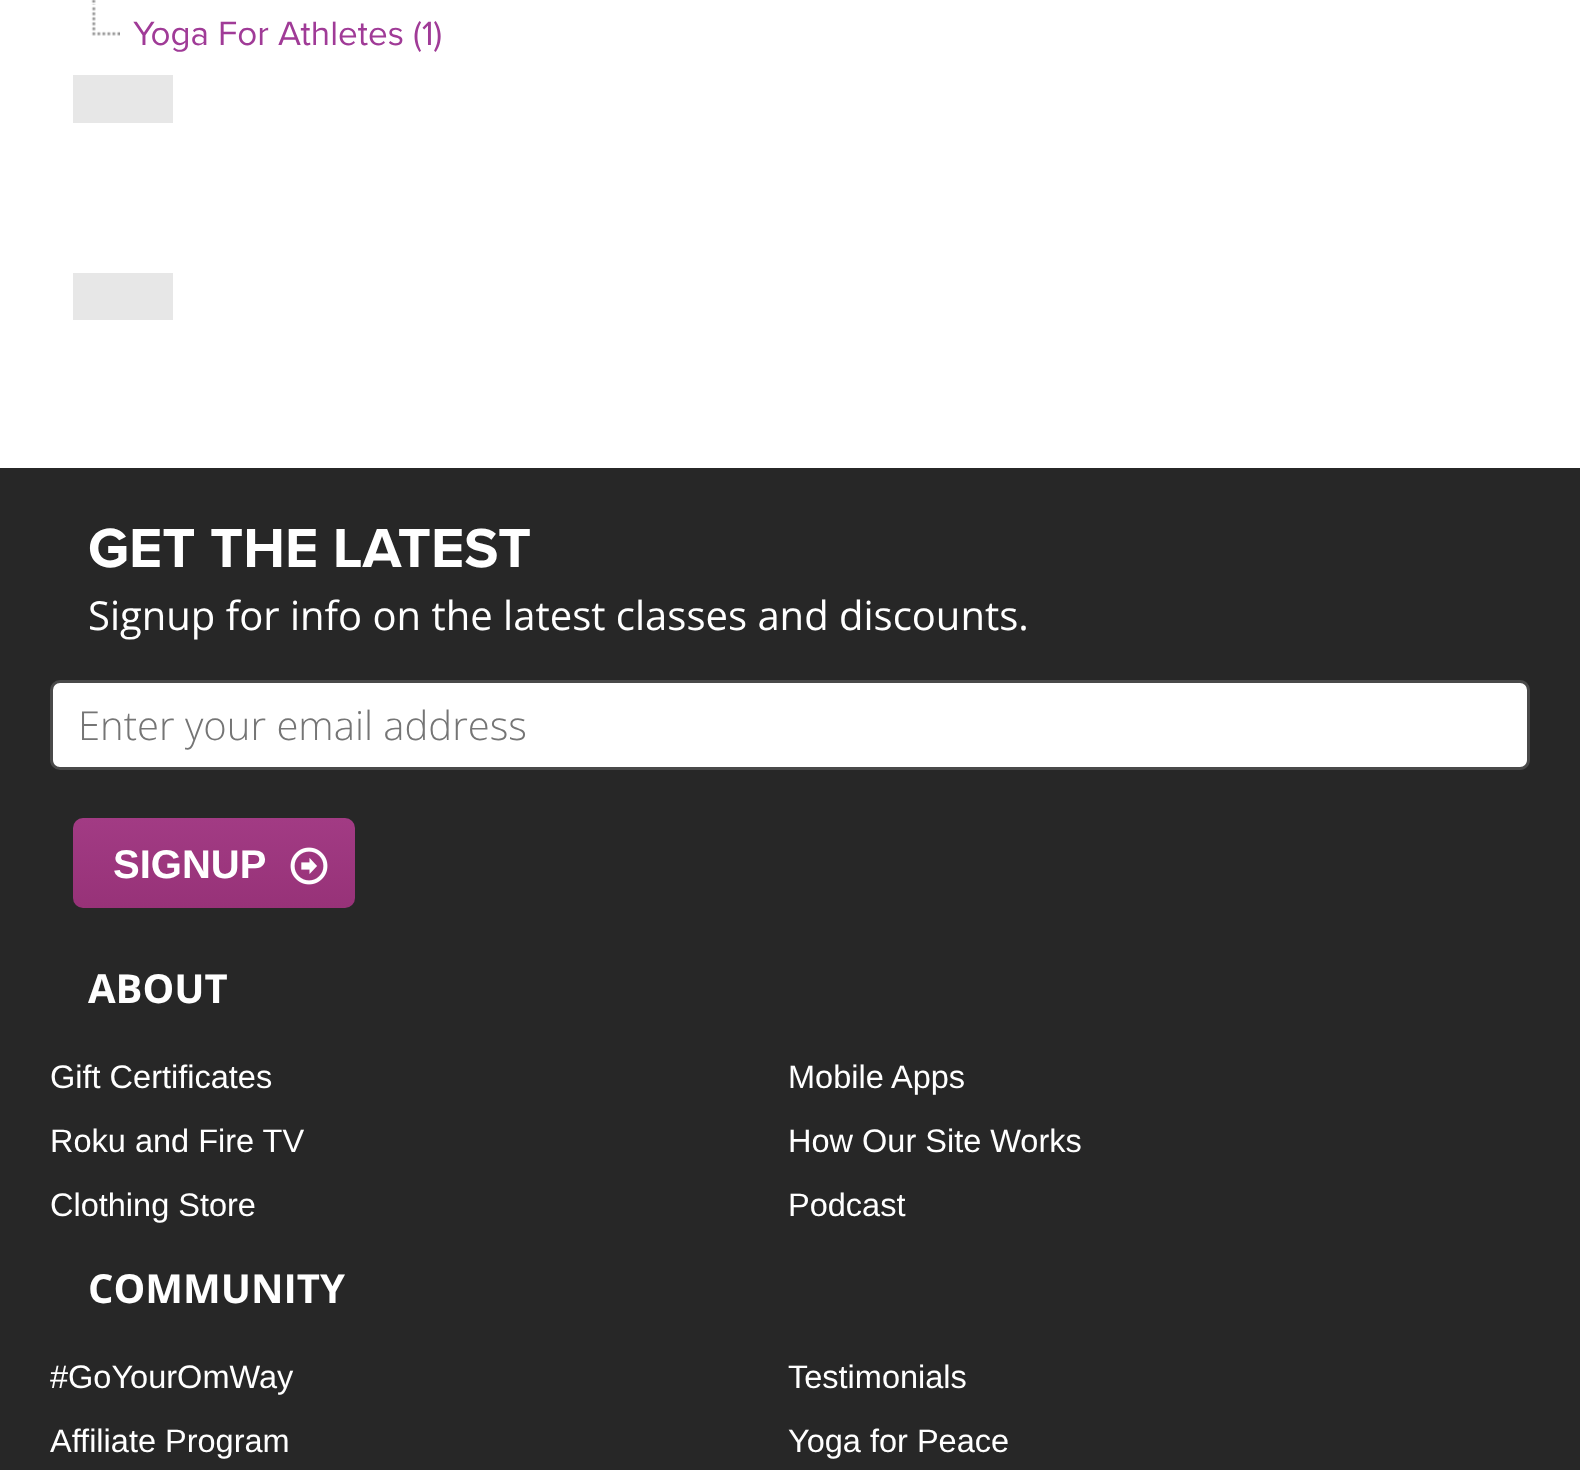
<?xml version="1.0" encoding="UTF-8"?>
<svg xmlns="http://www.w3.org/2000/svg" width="1580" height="1470">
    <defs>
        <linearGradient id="g1" gradientUnits="userSpaceOnUse" x1="214" y1="818" x2="214" y2="908"><stop offset="0" stop-color="#A23B84"/><stop offset="1" stop-color="#973278"/></linearGradient>
    </defs>
    <rect width="100%" height="100%" fill="#FFFFFF"/>
    <image x="91" y="0" width="5" height="5" href="img_01.png"/>
    <image x="91" y="6" width="29" height="30" href="img_02.png"/>
    <text x="133" y="45" font-family="Proxima Nova" font-size="35" fill="#A03B97">Yoga For Athletes (1)</text>
    <rect x="73" y="75" width="100" height="245" fill="#E7E7E7"/>
    <rect x="73" y="123" width="100" height="150" fill="#FFFFFF"/>
    <rect x="0" y="468" width="1580" height="1002" fill="#272727"/>
    <text x="88" y="567" font-family="Proxima Nova" font-size="57" font-weight="700" fill="#FFFFFF">GET THE LATEST</text>
    <text x="88" y="630" font-family="Open Sans" font-size="40" fill="#FFFFFF">Signup for info on the latest classes and discounts.</text>
    <rect x="51.5" y="681.5" width="1477" height="87" rx="8.5" fill="#FFFFFF" stroke="#494949" stroke-width="3"/>
    <text x="78" y="740" font-family="Open Sans" font-size="40" font-weight="300" fill="#757575">Enter your email address</text>
    <rect x="73" y="818" width="282" height="90" rx="10" fill="url(#g1)"/>
    <text x="113" y="878" font-family="Liberation Sans" font-size="40" font-weight="700" fill="#FFFFFF">SIGNUP</text>
    <image x="290" y="847" width="38" height="38" href="img_03.png"/>
    <text x="88" y="1003" font-family="Open Sans" font-size="40" font-weight="700" fill="#FFFFFF">ABOUT</text>
    <text x="50" y="1088" font-family="Liberation Sans" font-size="32.5" fill="#FFFFFF">Gift Certificates</text>
    <text x="788" y="1088" font-family="Liberation Sans" font-size="32.5" fill="#FFFFFF">Mobile Apps</text>
    <text x="50" y="1152" font-family="Liberation Sans" font-size="32.5" fill="#FFFFFF">Roku and Fire TV</text>
    <text x="788" y="1152" font-family="Liberation Sans" font-size="32.5" fill="#FFFFFF">How Our Site Works</text>
    <text x="50" y="1216" font-family="Liberation Sans" font-size="32.5" fill="#FFFFFF">Clothing Store</text>
    <text x="788" y="1216" font-family="Liberation Sans" font-size="32.5" fill="#FFFFFF">Podcast</text>
    <text x="88" y="1303" font-family="Open Sans" font-size="40" font-weight="700" fill="#FFFFFF">COMMUNITY</text>
    <text x="50" y="1388" font-family="Liberation Sans" font-size="32.5" fill="#FFFFFF">#GoYourOmWay</text>
    <text x="788" y="1388" font-family="Liberation Sans" font-size="32.5" fill="#FFFFFF">Testimonials</text>
    <text x="50" y="1452" font-family="Liberation Sans" font-size="32.5" fill="#FFFFFF">Affiliate Program</text>
    <text x="788" y="1452" font-family="Liberation Sans" font-size="32.5" fill="#FFFFFF">Yoga for Peace</text>
</svg>
